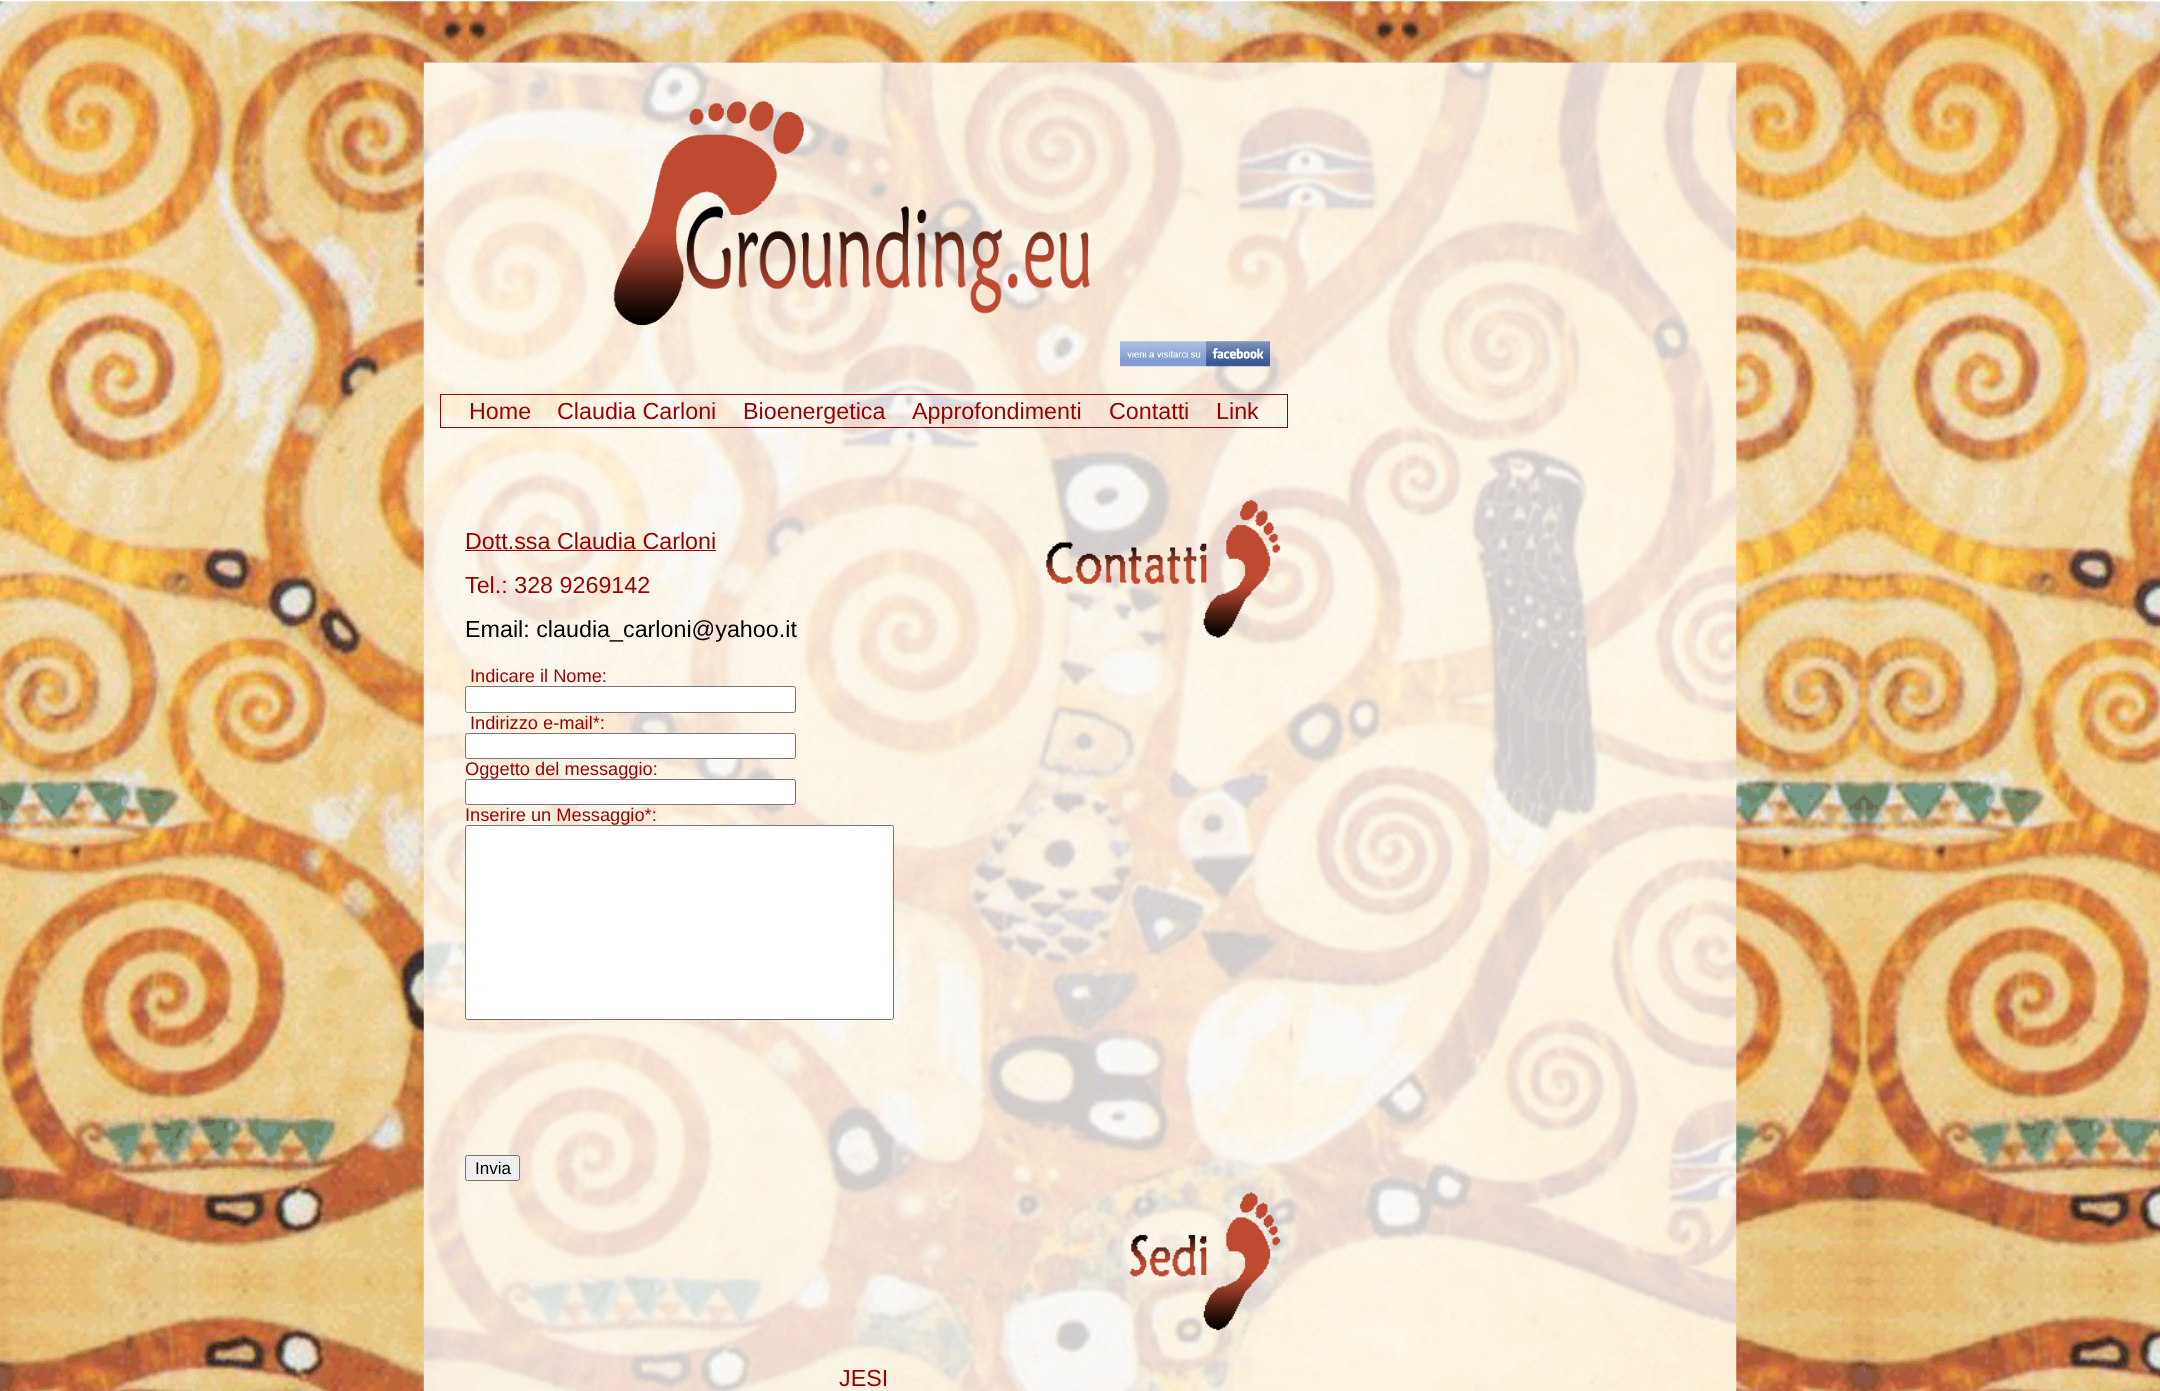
<?xml version="1.0" encoding="UTF-8"?>
<svg xmlns="http://www.w3.org/2000/svg" width="2160" height="1391">
    <rect width="100%" height="100%" fill="#FFFFFF"/>
    <image x="0" y="1" width="2160" height="1390" href="img_01.png"/>
    <image x="423" y="62" width="1314" height="1329" href="img_02.png"/>
    <image x="613" y="101" width="477" height="224" href="img_03.png"/>
    <image x="1120" y="341" width="150" height="26" href="img_04.png"/>
    <rect x="440.5" y="394.5" width="847" height="33" fill="none" stroke="#990000"/>
    <text x="469" y="419" font-family="Liberation Sans" font-size="23.3" fill="#990000">Home</text>
    <text x="557" y="419" font-family="Liberation Sans" font-size="23.3" fill="#990000">Claudia Carloni</text>
    <text x="743" y="419" font-family="Liberation Sans" font-size="23.3" fill="#990000">Bioenergetica</text>
    <text x="912" y="419" font-family="Liberation Sans" font-size="23.3" fill="#990000">Approfondimenti</text>
    <text x="1109" y="419" font-family="Liberation Sans" font-size="23.3" fill="#990000">Contatti</text>
    <text x="1216" y="419" font-family="Liberation Sans" font-size="23.3" fill="#990000">Link</text>
    <text x="465" y="549" font-family="Liberation Sans" font-size="23.3" fill="#990000">Dott.ssa Claudia Carloni</text>
    <rect x="465" y="550" width="251" height="1" fill="#990000"/>
    <text x="465" y="593" font-family="Liberation Sans" font-size="23.3" fill="#990000">Tel.: 328 9269142</text>
    <text x="465" y="637" font-family="Liberation Sans" font-size="23.3" fill="#000000">Email: claudia_carloni@yahoo.it</text>
    <image x="1046" y="499" width="235" height="139" href="img_05.png"/>
    <text x="470" y="682" font-family="Liberation Sans" font-size="18.25" fill="#990000">Indicare il Nome:</text>
    <rect x="465.5" y="686.5" width="330" height="26" rx="2" fill="#FFFFFF" stroke="#767676"/>
    <text x="470" y="729" font-family="Liberation Sans" font-size="18.25" fill="#990000">Indirizzo e-mail*:</text>
    <rect x="465.5" y="733.5" width="330" height="25" rx="2" fill="#FFFFFF" stroke="#767676"/>
    <text x="465" y="775" font-family="Liberation Sans" font-size="18.25" fill="#990000">Oggetto del messaggio:</text>
    <rect x="465.5" y="779.5" width="330" height="25" rx="2" fill="#FFFFFF" stroke="#767676"/>
    <text x="465" y="821" font-family="Liberation Sans" font-size="18.25" fill="#990000">Inserire un Messaggio*:</text>
    <rect x="465.5" y="825.5" width="428" height="194" rx="2" fill="#FFFFFF" stroke="#767676"/>
    <rect x="465.5" y="1155.5" width="54" height="25" rx="2" fill="#EFEFEF" stroke="#767676"/>
    <text x="475" y="1174" font-family="Liberation Sans" font-size="17" fill="#000000">Invia</text>
    <image x="1129" y="1192" width="152" height="139" href="img_06.png"/>
    <text x="839" y="1386" font-family="Liberation Sans" font-size="23.3" fill="#990000">JESI</text>
</svg>
